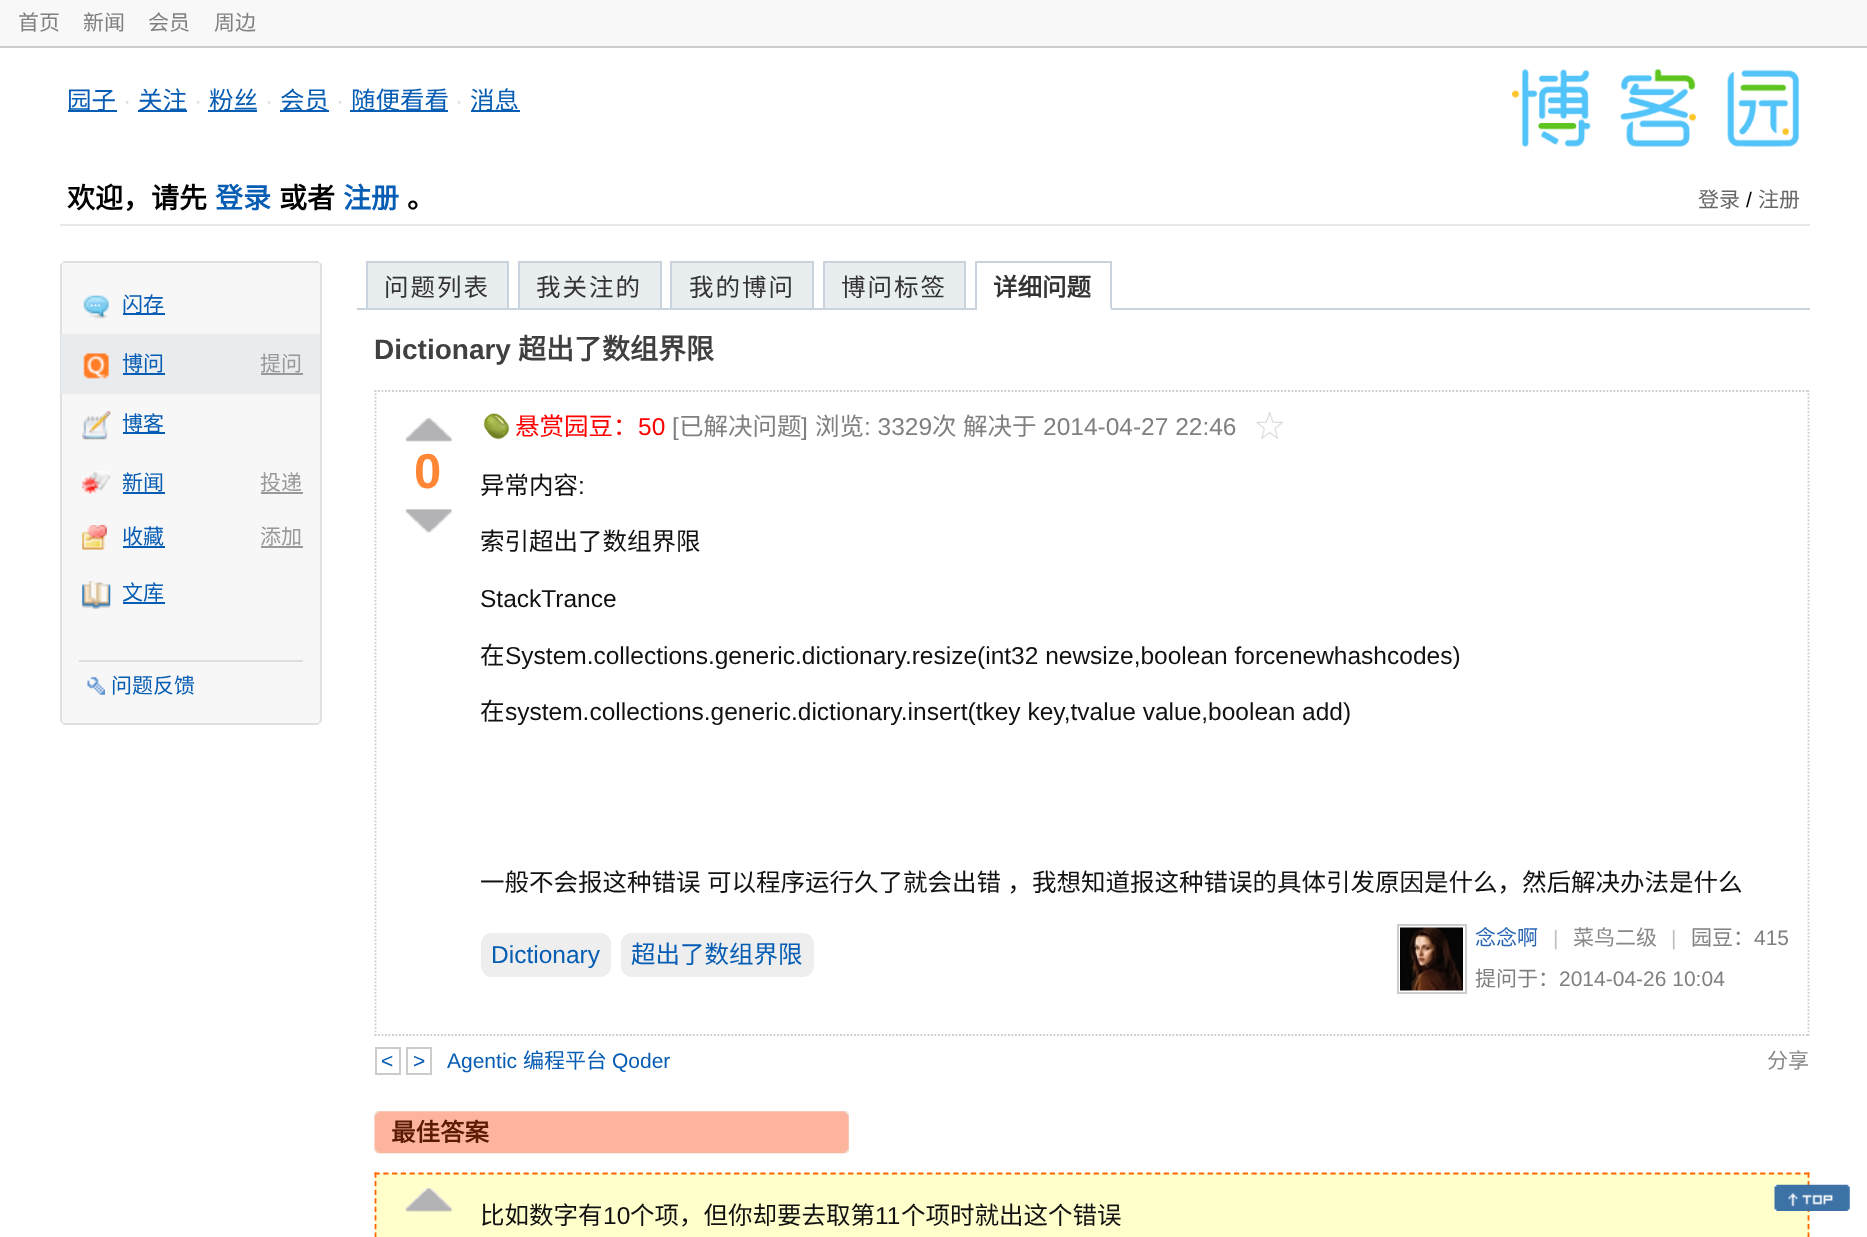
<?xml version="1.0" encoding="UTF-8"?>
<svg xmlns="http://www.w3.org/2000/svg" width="1867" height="1237">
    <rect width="100%" height="100%" fill="#FFFFFF"/>
    <rect x="0" y="0" width="1867" height="46" fill="#F8F8F8"/>
    <rect x="0" y="46" width="1867" height="2" fill="#CCCCCC"/>
    <text x="18" y="30" font-family="Noto Sans CJK SC" font-size="21" fill="#808080">首页</text>
    <text x="83" y="30" font-family="Noto Sans CJK SC" font-size="21" fill="#808080">新闻</text>
    <text x="148" y="30" font-family="Noto Sans CJK SC" font-size="21" fill="#808080">会员</text>
    <text x="214" y="30" font-family="Noto Sans CJK SC" font-size="21" fill="#808080">周边</text>
    <rect x="60" y="224" width="1750" height="2" fill="#E8E8E8"/>
    <rect x="68" y="110" width="49" height="2" fill="#075DB3"/>
    <text x="67" y="109" font-family="Noto Sans CJK SC" font-size="24.5" fill="#075DB3">园子</text>
    <text x="123" y="109" font-family="Liberation Sans" font-size="24.5" fill="#DFDFDF">·</text>
    <rect x="138" y="110" width="49" height="2" fill="#075DB3"/>
    <text x="138" y="109" font-family="Noto Sans CJK SC" font-size="24.5" fill="#075DB3">关注</text>
    <text x="194" y="109" font-family="Liberation Sans" font-size="24.5" fill="#DFDFDF">·</text>
    <rect x="208" y="110" width="49" height="2" fill="#075DB3"/>
    <text x="209" y="109" font-family="Noto Sans CJK SC" font-size="24.5" fill="#075DB3">粉丝</text>
    <text x="265" y="109" font-family="Liberation Sans" font-size="24.5" fill="#DFDFDF">·</text>
    <rect x="280" y="110" width="49" height="2" fill="#075DB3"/>
    <text x="280" y="109" font-family="Noto Sans CJK SC" font-size="24.5" fill="#075DB3">会员</text>
    <text x="336" y="109" font-family="Liberation Sans" font-size="24.5" fill="#DFDFDF">·</text>
    <rect x="350" y="110" width="98" height="2" fill="#075DB3"/>
    <text x="351" y="109" font-family="Noto Sans CJK SC" font-size="24.5" fill="#075DB3">随便看看</text>
    <text x="455" y="109" font-family="Liberation Sans" font-size="24.5" fill="#DFDFDF">·</text>
    <rect x="471" y="110" width="49" height="2" fill="#075DB3"/>
    <text x="470" y="109" font-family="Noto Sans CJK SC" font-size="24.5" fill="#075DB3">消息</text>
    <image x="1512" y="68" width="288" height="79" href="img_01.png"/>
    <text x="67" y="208" font-family="Noto Sans CJK SC" font-size="28" font-weight="700" fill="#000000">欢迎，请先</text>
    <text x="215" y="208" font-family="Noto Sans CJK SC" font-size="28" font-weight="700" fill="#075DB3">登录</text>
    <text x="279" y="208" font-family="Noto Sans CJK SC" font-size="28" font-weight="700" fill="#000000">或者</text>
    <text x="343" y="208" font-family="Noto Sans CJK SC" font-size="28" font-weight="700" fill="#075DB3">注册</text>
    <text x="407" y="208" font-family="Noto Sans CJK SC" font-size="28" font-weight="700" fill="#000000">。</text>
    <text x="1698" y="207" font-family="Noto Sans CJK SC" font-size="21" fill="#666666">登录</text>
    <text x="1746" y="207" font-family="Liberation Sans" font-size="21" fill="#000000">/</text>
    <text x="1758" y="207" font-family="Noto Sans CJK SC" font-size="21" fill="#666666">注册</text>
    <rect x="63" y="261" width="256" height="2" fill="#DFE1E1"/>
    <rect x="61" y="263" width="259" height="1" fill="#F7F7F7"/>
    <rect x="319" y="263" width="2" height="1" fill="#DFE1E1"/>
    <rect x="61" y="263" width="2" height="1" fill="#DFE1E1"/>
    <rect x="60" y="264" width="262" height="2" fill="#F7F7F7"/>
    <rect x="320" y="264" width="2" height="2" fill="#DBDEE2"/>
    <rect x="60" y="264" width="2" height="455" fill="#DFE1E1"/>
    <rect x="62" y="266" width="258" height="453" fill="#F7F7F7"/>
    <rect x="320" y="266" width="2" height="453" fill="#DFE1E1"/>
    <image x="83" y="295" width="26" height="24" href="img_02.png"/>
    <rect x="123" y="313" width="42" height="2" fill="#075DB3"/>
    <text x="122" y="312" font-family="Noto Sans CJK SC" font-size="21" fill="#075DB3">闪存</text>
    <rect x="61" y="334" width="259" height="60" fill="#E9ECEF"/>
    <image x="83" y="353" width="26" height="26" href="img_03.png"/>
    <text x="122" y="371" font-family="Noto Sans CJK SC" font-size="21" fill="#075DB3">博问</text>
    <rect x="123" y="373" width="42" height="2" fill="#075DB3"/>
    <text x="260" y="371" font-family="Noto Sans CJK SC" font-size="21" fill="#999999">提问</text>
    <rect x="261" y="373" width="42" height="2" fill="#999999"/>
    <image x="82" y="411" width="29" height="29" href="img_04.png"/>
    <rect x="123" y="432" width="42" height="2" fill="#075DB3"/>
    <text x="122" y="431" font-family="Noto Sans CJK SC" font-size="21" fill="#075DB3">博客</text>
    <image x="82" y="471" width="29" height="23" href="img_05.png"/>
    <text x="122" y="490" font-family="Noto Sans CJK SC" font-size="21" fill="#075DB3">新闻</text>
    <rect x="123" y="492" width="42" height="2" fill="#075DB3"/>
    <text x="260" y="490" font-family="Noto Sans CJK SC" font-size="21" fill="#999999">投递</text>
    <rect x="261" y="492" width="42" height="2" fill="#999999"/>
    <image x="82" y="525" width="25" height="25" href="img_06.png"/>
    <text x="122" y="544" font-family="Noto Sans CJK SC" font-size="21" fill="#075DB3">收藏</text>
    <rect x="123" y="546" width="42" height="2" fill="#075DB3"/>
    <text x="260" y="544" font-family="Noto Sans CJK SC" font-size="21" fill="#999999">添加</text>
    <rect x="261" y="546" width="42" height="2" fill="#999999"/>
    <image x="82" y="581" width="29" height="28" href="img_07.png"/>
    <text x="122" y="600" font-family="Noto Sans CJK SC" font-size="21" fill="#075DB3">文库</text>
    <rect x="123" y="602" width="42" height="2" fill="#075DB3"/>
    <rect x="79" y="660" width="224" height="2" fill="#DDDDDD"/>
    <image x="87" y="677" width="18" height="18" href="img_08.png"/>
    <text x="111" y="693" font-family="Noto Sans CJK SC" font-size="21" fill="#075DB3">问题反馈</text>
    <rect x="60" y="719" width="262" height="2" fill="#F7F7F7"/>
    <rect x="320" y="719" width="2" height="2" fill="#DBDEE2"/>
    <rect x="60" y="719" width="2" height="2" fill="#DFE1E1"/>
    <rect x="61" y="721" width="259" height="2" fill="#F7F7F7"/>
    <rect x="319" y="721" width="2" height="2" fill="#DFE1E1"/>
    <rect x="61" y="721" width="2" height="2" fill="#DFE1E1"/>
    <rect x="63" y="723" width="256" height="2" fill="#DFE1E1"/>
    <rect x="357" y="308" width="1453" height="2" fill="#C8D3DE"/>
    <rect x="367" y="262" width="141" height="47" fill="#E8EDF0" stroke="#C8D3DE" stroke-width="2"/>
    <text x="384" y="296" font-family="Noto Sans CJK SC" font-size="24.5" letter-spacing="2" fill="#333333">问题列表</text>
    <rect x="519" y="262" width="142" height="47" fill="#E8EDF0" stroke="#C8D3DE" stroke-width="2"/>
    <text x="536" y="296" font-family="Noto Sans CJK SC" font-size="24.5" letter-spacing="2" fill="#333333">我关注的</text>
    <rect x="671" y="262" width="142" height="47" fill="#E8EDF0" stroke="#C8D3DE" stroke-width="2"/>
    <text x="689" y="296" font-family="Noto Sans CJK SC" font-size="24.5" letter-spacing="2" fill="#333333">我的博问</text>
    <rect x="824" y="262" width="141" height="47" fill="#E8EDF0" stroke="#C8D3DE" stroke-width="2"/>
    <text x="841" y="296" font-family="Noto Sans CJK SC" font-size="24.5" letter-spacing="2" fill="#333333">博问标签</text>
    <rect x="975" y="261" width="136" height="2" fill="#C8D3DE"/>
    <rect x="1110" y="261" width="2" height="49" fill="#C8D3DE"/>
    <rect x="975" y="308" width="136" height="2" fill="#FFFFFF"/>
    <rect x="975" y="261" width="2" height="49" fill="#C8D3DE"/>
    <text x="993" y="296" font-family="Noto Sans CJK SC" font-size="24.5" font-weight="700" fill="#333333">详细问题</text>
    <text x="374" y="359" font-family="Liberation Sans" font-size="28" font-weight="700" fill="#404040">Dictionary</text>
    <text x="518" y="359" font-family="Noto Sans CJK SC" font-size="28" font-weight="700" fill="#404040">超出了数组界限</text>
    <path d="M 374.5 391 H 1809.5" fill="none" stroke="#CCCCCC" stroke-width="1.8" stroke-dasharray="1.75 1.75"/>
    <path d="M 1808.5 390 V 1036" fill="none" stroke="#CCCCCC" stroke-width="1.8" stroke-dasharray="1.75 1.75"/>
    <path d="M 374.5 1035 H 1809.5" fill="none" stroke="#CCCCCC" stroke-width="1.8" stroke-dasharray="1.75 1.75"/>
    <path d="M 375.5 390 V 1036" fill="none" stroke="#CCCCCC" stroke-width="1.8" stroke-dasharray="1.75 1.75"/>
    <image x="405" y="418" width="47" height="24" href="img_09.png"/>
    <text x="414" y="488" font-family="Liberation Sans" font-size="49" font-weight="700" fill="#FF8635">0</text>
    <image x="405" y="509" width="47" height="24" href="img_10.png"/>
    <image x="483" y="413" width="27" height="27" href="img_11.png"/>
    <text x="515" y="435" font-family="Noto Sans CJK SC" font-size="24.5" fill="#FF0000">悬赏园豆：</text>
    <text x="638" y="435" font-family="Liberation Sans" font-size="24.5" fill="#FF0000">50</text>
    <text x="672" y="435" font-family="Liberation Sans" font-size="24.5" fill="#808080">[</text>
    <text x="679" y="435" font-family="Noto Sans CJK SC" font-size="24.5" fill="#808080">已解决问题</text>
    <text x="801" y="435" font-family="Liberation Sans" font-size="24.5" fill="#808080">]</text>
    <text x="815" y="435" font-family="Noto Sans CJK SC" font-size="24.5" fill="#808080">浏览</text>
    <text x="864" y="435" font-family="Liberation Sans" font-size="24.5" fill="#808080">: 3329</text>
    <text x="932" y="435" font-family="Noto Sans CJK SC" font-size="24.5" fill="#808080">次</text>
    <text x="963" y="435" font-family="Noto Sans CJK SC" font-size="24.5" fill="#808080">解决于</text>
    <text x="1043" y="435" font-family="Liberation Sans" font-size="24.5" fill="#808080">2014-04-27 22:46</text>
    <image x="1256" y="411" width="28" height="28" href="img_12.png"/>
    <text x="480" y="494" font-family="Noto Sans CJK SC" font-size="24.5" fill="#111111">异常内容</text>
    <text x="578" y="494" font-family="Liberation Sans" font-size="24.5" fill="#111111">:</text>
    <text x="480" y="550" font-family="Noto Sans CJK SC" font-size="24.5" fill="#111111">索引超出了数组界限</text>
    <text x="480" y="607" font-family="Liberation Sans" font-size="24.5" fill="#111111">StackTrance</text>
    <text x="480" y="664" font-family="Noto Sans CJK SC" font-size="24.5" fill="#111111">在</text>
    <text x="505" y="664" font-family="Liberation Sans" font-size="24.5" fill="#111111">System.collections.generic.dictionary.resize(int32 newsize,boolean forcenewhashcodes)</text>
    <text x="480" y="720" font-family="Noto Sans CJK SC" font-size="24.5" fill="#111111">在</text>
    <text x="505" y="720" font-family="Liberation Sans" font-size="24.5" fill="#111111">system.collections.generic.dictionary.insert(tkey key,tvalue value,boolean add)</text>
    <text x="480" y="891" word-spacing="1" font-family="Noto Sans CJK SC" font-size="24.5" fill="#111111">一般不会报这种错误 可以程序运行久了就会出错 ，我想知道报这种错误的具体引发原因是什么，然后解决办法是什么</text>
    <rect x="481" y="933" width="130" height="44" rx="11" fill="#EEEEEE"/>
    <text x="491" y="963" font-family="Liberation Sans" font-size="24.5" fill="#075DB3">Dictionary</text>
    <rect x="621" y="933" width="193" height="44" rx="11" fill="#EEEEEE"/>
    <text x="631" y="963" font-family="Noto Sans CJK SC" font-size="24.5" fill="#075DB3">超出了数组界限</text>
    <rect x="1398" y="925" width="68" height="68" fill="none" stroke="#CCCCCC" stroke-width="2"/>
    <image x="1400" y="927" width="63" height="64" href="img_13.png"/>
    <text x="1475" y="945" font-family="Noto Sans CJK SC" font-size="21" fill="#2965B1">念念啊</text>
    <text x="1553" y="945" font-family="Liberation Sans" font-size="21" fill="#C1C1C1">|</text>
    <text x="1573" y="945" font-family="Noto Sans CJK SC" font-size="21" fill="#888888">菜鸟二级</text>
    <text x="1671" y="945" font-family="Liberation Sans" font-size="21" fill="#C1C1C1">|</text>
    <text x="1691" y="945" font-family="Noto Sans CJK SC" font-size="21" fill="#808080">园豆：</text>
    <text x="1754" y="945" font-family="Liberation Sans" font-size="21" fill="#808080">415</text>
    <text x="1475" y="986" font-family="Noto Sans CJK SC" font-size="21" fill="#808080">提问于：</text>
    <text x="1559" y="986" font-family="Liberation Sans" font-size="21" fill="#808080">2014-04-26 10:04</text>
    <rect x="376" y="1048" width="24" height="26" fill="none" stroke="#CCCCCC" stroke-width="2"/>
    <text x="381" y="1068" font-family="Liberation Sans" font-size="21" fill="#075DB3">&lt;</text>
    <rect x="407" y="1048" width="24" height="26" fill="none" stroke="#CCCCCC" stroke-width="2"/>
    <text x="413" y="1068" font-family="Liberation Sans" font-size="21" fill="#075DB3">&gt;</text>
    <text x="447" y="1068" font-family="Liberation Sans" font-size="21" fill="#075DB3">Agentic</text>
    <text x="523" y="1068" font-family="Noto Sans CJK SC" font-size="21" fill="#075DB3">编程平台</text>
    <text x="612" y="1068" font-family="Liberation Sans" font-size="21" fill="#075DB3">Qoder</text>
    <text x="1767" y="1068" font-family="Noto Sans CJK SC" font-size="21" fill="#888888">分享</text>
    <image x="374" y="1111" width="475" height="43" href="img_14.png"/>
    <text x="391" y="1141" font-family="Noto Sans CJK SC" font-size="24.5" font-weight="700" fill="#5A1A03">最佳答案</text>
    <rect x="375" y="1173" width="1435" height="64" fill="#FFFFCC"/>
    <path d="M 374.5 1173.5 H 1809.5" fill="none" stroke="#FF6600" stroke-width="1.8" stroke-dasharray="5.25 3.52"/>
    <path d="M 1808.5 1172.5 V 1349" fill="none" stroke="#FF6600" stroke-width="1.8" stroke-dasharray="5.25 3.32"/>
    <path d="M 375.5 1172.5 V 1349" fill="none" stroke="#FF6600" stroke-width="1.8" stroke-dasharray="5.25 3.32"/>
    <image x="405" y="1188" width="47" height="24" href="img_15.png"/>
    <text x="480" y="1224" font-family="Noto Sans CJK SC" font-size="24.5" fill="#111111">比如数字有</text>
    <text x="603" y="1224" font-family="Liberation Sans" font-size="24.5" fill="#111111">10</text>
    <text x="630" y="1224" font-family="Noto Sans CJK SC" font-size="24.5" fill="#111111">个项，但你却要去取第</text>
    <text x="875" y="1224" font-family="Liberation Sans" font-size="24.5" fill="#111111">11</text>
    <text x="901" y="1224" font-family="Noto Sans CJK SC" font-size="24.5" fill="#111111">个项时就出这个错误</text>
    <image x="1774" y="1184" width="76" height="27" href="img_16.png"/>
</svg>
